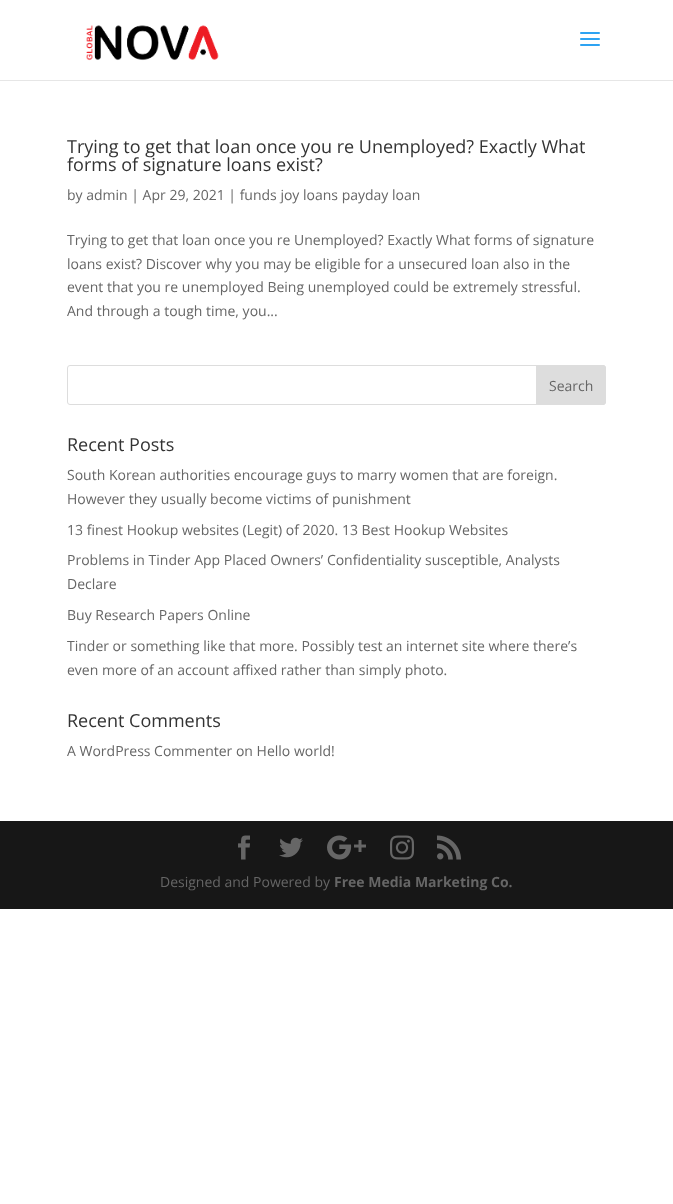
<?xml version="1.0" encoding="UTF-8"?>
<svg xmlns="http://www.w3.org/2000/svg" width="673" height="1204">
    <rect width="100%" height="100%" fill="#FFFFFF"/>
    <rect x="0" y="80" width="673" height="1" fill="#E6E6E6"/>
    <image x="86" y="25" width="133" height="36" href="img_01.png"/>
    <image x="580" y="32" width="20" height="14" href="img_02.png"/>
    <text font-family="Open Sans" font-size="18" fill="#333333">
        <tspan x="67" y="153">Trying to get that loan once you re Unemployed? Exactly What</tspan>
        <tspan x="67" y="171">forms of signature loans exist?</tspan>
    </text>
    <text x="67" y="200" font-family="Open Sans" font-size="14" fill="#666666">by admin | Apr 29, 2021 | funds joy loans payday loan</text>
    <text font-family="Open Sans" font-size="14" fill="#666666">
        <tspan x="67" y="245">Trying to get that loan once you re Unemployed? Exactly What forms of signature</tspan>
        <tspan x="67" y="269">loans exist? Discover why you may be eligible for a unsecured loan also in the</tspan>
        <tspan x="67" y="292">event that you re unemployed Being unemployed could be extremely stressful.</tspan>
        <tspan x="67" y="316">And through a tough time, you...</tspan>
    </text>
    <rect x="67.5" y="365.5" width="538" height="39" rx="2.5" fill="none" stroke="#DDDDDD"/>
    <path d="M 536.5 365.5 H 603 C 604.5 365.5 605.5 366.5 605.5 368 V 402 C 605.5 403.5 604.5 404.5 603 404.5 H 536.5 Z" fill="#DDDDDD" stroke="#DDDDDD"/>
    <text x="549" y="391" font-family="Open Sans" font-size="14" fill="#666666">Search</text>
    <text x="67" y="451" font-family="Open Sans" font-size="18" fill="#333333">Recent Posts</text>
    <text font-family="Open Sans" font-size="14" fill="#666666">
        <tspan x="67" y="480">South Korean authorities encourage guys to marry women that are foreign.</tspan>
        <tspan x="67" y="504">However they usually become victims of punishment</tspan>
    </text>
    <text x="67" y="535" font-family="Open Sans" font-size="14" fill="#666666">13 finest Hookup websites (Legit) of 2020. 13 Best Hookup Websites</text>
    <text font-family="Open Sans" font-size="14" fill="#666666">
        <tspan x="67" y="565">Problems in Tinder App Placed Owners’ Confidentiality susceptible, Analysts</tspan>
        <tspan x="67" y="589">Declare</tspan>
    </text>
    <text x="67" y="620" font-family="Open Sans" font-size="14" fill="#666666">Buy Research Papers Online</text>
    <text font-family="Open Sans" font-size="14" fill="#666666">
        <tspan x="67" y="651">Tinder or something like that more. Possibly test an internet site where there’s</tspan>
        <tspan x="67" y="675">even more of an account affixed rather than simply photo.</tspan>
    </text>
    <text x="67" y="727" font-family="Open Sans" font-size="18" fill="#333333">Recent Comments</text>
    <text x="67" y="756" font-family="Open Sans" font-size="14" fill="#666666">A WordPress Commenter on Hello world!</text>
    <rect x="0" y="821" width="673" height="88" fill="#171717"/>
    <image x="238" y="835" width="12" height="25" href="img_03.png"/>
    <image x="279" y="837" width="24" height="21" href="img_04.png"/>
    <image x="327" y="835" width="39" height="25" href="img_05.png"/>
    <image x="390" y="835" width="24" height="25" href="img_06.png"/>
    <image x="437" y="835" width="24" height="25" href="img_07.png"/>
    <text x="160" y="887" font-family="Open Sans" font-size="14" fill="#666666">Designed and Powered by</text>
    <text x="334" y="887" font-family="Open Sans" font-size="14" font-weight="700" fill="#666666">Free Media Marketing Co.</text>
</svg>
